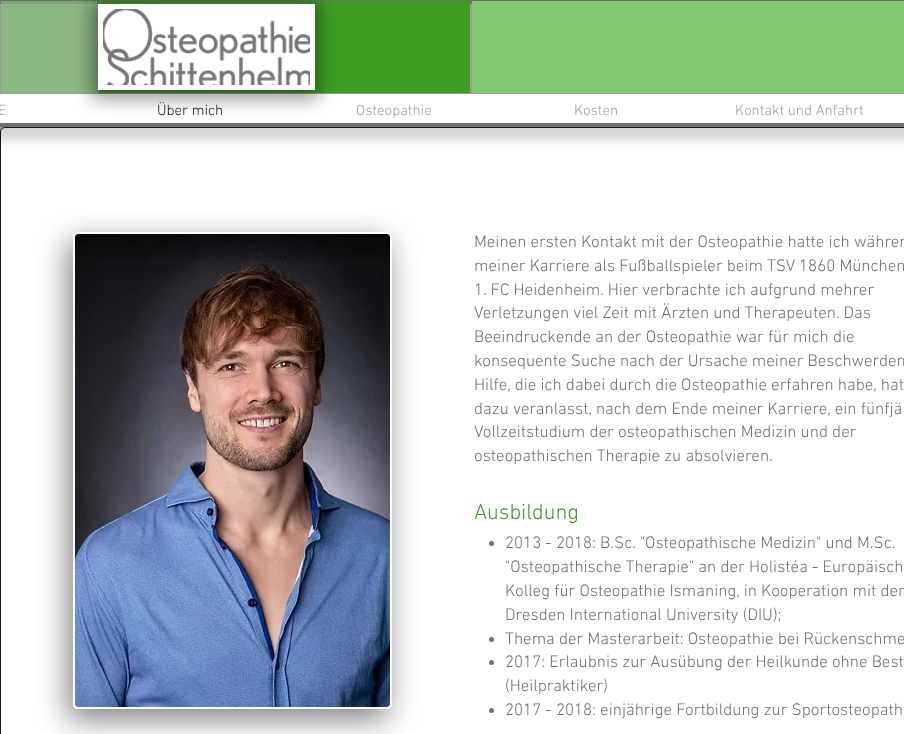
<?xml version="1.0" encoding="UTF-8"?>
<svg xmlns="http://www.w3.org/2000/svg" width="904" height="734">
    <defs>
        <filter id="blur1" x="-50%" y="-200%" width="200%" height="500%"><feGaussianBlur stdDeviation="2"/></filter>
        <filter id="blur2" x="-50%" y="-200%" width="200%" height="500%"><feGaussianBlur stdDeviation="6"/></filter>
        <filter id="blur3" x="-50%" y="-200%" width="200%" height="500%"><feGaussianBlur stdDeviation="9"/></filter>
        <clipPath id="clip1"><path d="M 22 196 H 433 V 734 H 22 Z M 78 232 H 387 C 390 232 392 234 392 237 V 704 C 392 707 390 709 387 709 H 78 C 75 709 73 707 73 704 V 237 C 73 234 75 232 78 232 Z" clip-rule="evenodd"/></clipPath>
        <filter id="blur4" x="-50%" y="-200%" width="200%" height="500%"><feGaussianBlur stdDeviation="15"/></filter>
    </defs>
    <rect width="100%" height="100%" fill="#CCCCCC"/>
    <rect x="0" y="128" width="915" height="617" rx="5" fill="#000000" fill-opacity="0.6" filter="url(#blur1)"/>
    <rect x="0.5" y="127.5" width="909" height="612" rx="4.5" fill="#FFFFFF" stroke="#171717"/>
    <rect x="-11" y="-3" width="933" height="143" fill="#000000" fill-opacity="0.17" filter="url(#blur2)"/>
    <rect x="0" y="94" width="904" height="29" fill="#FFFFFF"/>
    <rect x="0" y="4" width="904" height="90" fill="#9B9B9B"/>
    <rect x="1" y="4" width="96" height="89" fill="#8BB781"/>
    <rect x="0" y="0" width="904" height="4" fill="#707070"/>
    <rect x="1" y="1" width="96" height="3" fill="#7BA771"/>
    <rect x="0" y="123" width="904" height="4" fill="#707070"/>
    <rect x="99" y="1" width="371" height="92" fill="#3C9E23"/>
    <rect x="91" y="1" width="229" height="98" rx="7" fill="#000000" fill-opacity="0.4" filter="url(#blur3)"/>
    <rect x="103" y="9" width="207" height="76" fill="#FFFFFF"/>
    <path d="M 100.5 6.5 H 312.5 V 87.5 H 100.5 Z" fill="none" stroke="#FFFFFF" stroke-width="5"/>
    <image x="103" y="9" width="207" height="76" href="img_01.png"/>
    <rect x="472" y="1" width="432" height="92" fill="#82C771"/>
    <text x="-2" y="115" font-family="'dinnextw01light'" font-size="15" font-weight="300" fill="#A0A09F">E</text>
    <text x="157" y="115" font-family="'dinnextw01light'" font-size="15" font-weight="300" fill="#171717">Über mich</text>
    <text x="356" y="115" font-family="'dinnextw01light'" font-size="15" font-weight="300" fill="#A0A09F">Osteopathie</text>
    <text x="574" y="115" font-family="'dinnextw01light'" font-size="15" font-weight="300" fill="#A0A09F">Kosten</text>
    <text x="735" y="115" font-family="'dinnextw01light'" font-size="15" font-weight="300" fill="#A0A09F">Kontakt und Anfahrt</text>
    <g clip-path="url(#clip1)">
        <rect x="68" y="242" width="319" height="477" rx="5" fill="#000000" fill-opacity="0.5" filter="url(#blur4)"/>
    </g>
    <rect x="73" y="232" width="319" height="477" rx="5" fill="#FFFFFF" fill-opacity="0.56"/>
    <rect x="74" y="233" width="317" height="475" rx="4" fill="none" stroke="#FFFFFF" stroke-opacity="0.56" stroke-width="2"/>
    <image x="75" y="234" width="315" height="473" href="img_02.png"/>
    <text font-family="'dinnextw01light'" font-size="17" font-weight="300" fill="#707070">
        <tspan x="474" y="247">Meinen ersten Kontakt mit der Osteopathie hatte ich währen</tspan>
        <tspan x="474" y="271">meiner Karriere als Fußballspieler beim TSV 1860 München</tspan>
        <tspan x="474" y="295">1. FC Heidenheim. Hier verbrachte ich aufgrund mehrer</tspan>
        <tspan x="474" y="318">Verletzungen viel Zeit mit Ärzten und Therapeuten. Das</tspan>
        <tspan x="474" y="342">Beeindruckende an der Osteopathie war für mich die</tspan>
        <tspan x="474" y="366">konsequente Suche nach der Ursache meiner Beschwerden</tspan>
        <tspan x="474" y="390">Hilfe, die ich dabei durch die Osteopathie erfahren habe, hat</tspan>
        <tspan x="474" y="414">dazu veranlasst, nach dem Ende meiner Karriere, ein fünfjä</tspan>
        <tspan x="474" y="437">Vollzeitstudium der osteopathischen Medizin und der</tspan>
        <tspan x="474" y="461">osteopathischen Therapie zu absolvieren.</tspan>
    </text>
    <text x="474" y="519" font-family="'dinnextw01light'" font-size="22" font-weight="300" fill="#3C9E23">Ausbildung</text>
    <circle cx="491.5" cy="543.5" r="2.5" fill="#707070"/>
    <text font-family="'dinnextw01light'" font-size="17" font-weight="300" fill="#707070">
        <tspan x="505" y="548">2013 - 2018: B.Sc. "Osteopathische Medizin" und M.Sc.</tspan>
        <tspan x="505" y="572">"Osteopathische Therapie" an der Holistéa - Europäisch</tspan>
        <tspan x="505" y="596">Kolleg für Osteopathie Ismaning, in Kooperation mit der</tspan>
        <tspan x="505" y="620">Dresden International University (DIU);</tspan>
    </text>
    <circle cx="491.5" cy="639.5" r="2.5" fill="#707070"/>
    <text x="505" y="644" font-family="'dinnextw01light'" font-size="17" font-weight="300" fill="#707070">Thema der Masterarbeit: Osteopathie bei Rückenschme</text>
    <circle cx="491.5" cy="662.5" r="2.5" fill="#707070"/>
    <text font-family="'dinnextw01light'" font-size="17" font-weight="300" fill="#707070">
        <tspan x="505" y="667">2017: Erlaubnis zur Ausübung der Heilkunde ohne Best</tspan>
        <tspan x="505" y="691">(Heilpraktiker)</tspan>
    </text>
    <circle cx="491.5" cy="710.5" r="2.5" fill="#707070"/>
    <text x="505" y="715" font-family="'dinnextw01light'" font-size="17" font-weight="300" fill="#707070">2017 - 2018: einjährige Fortbildung zur Sportosteopath</text>
</svg>
